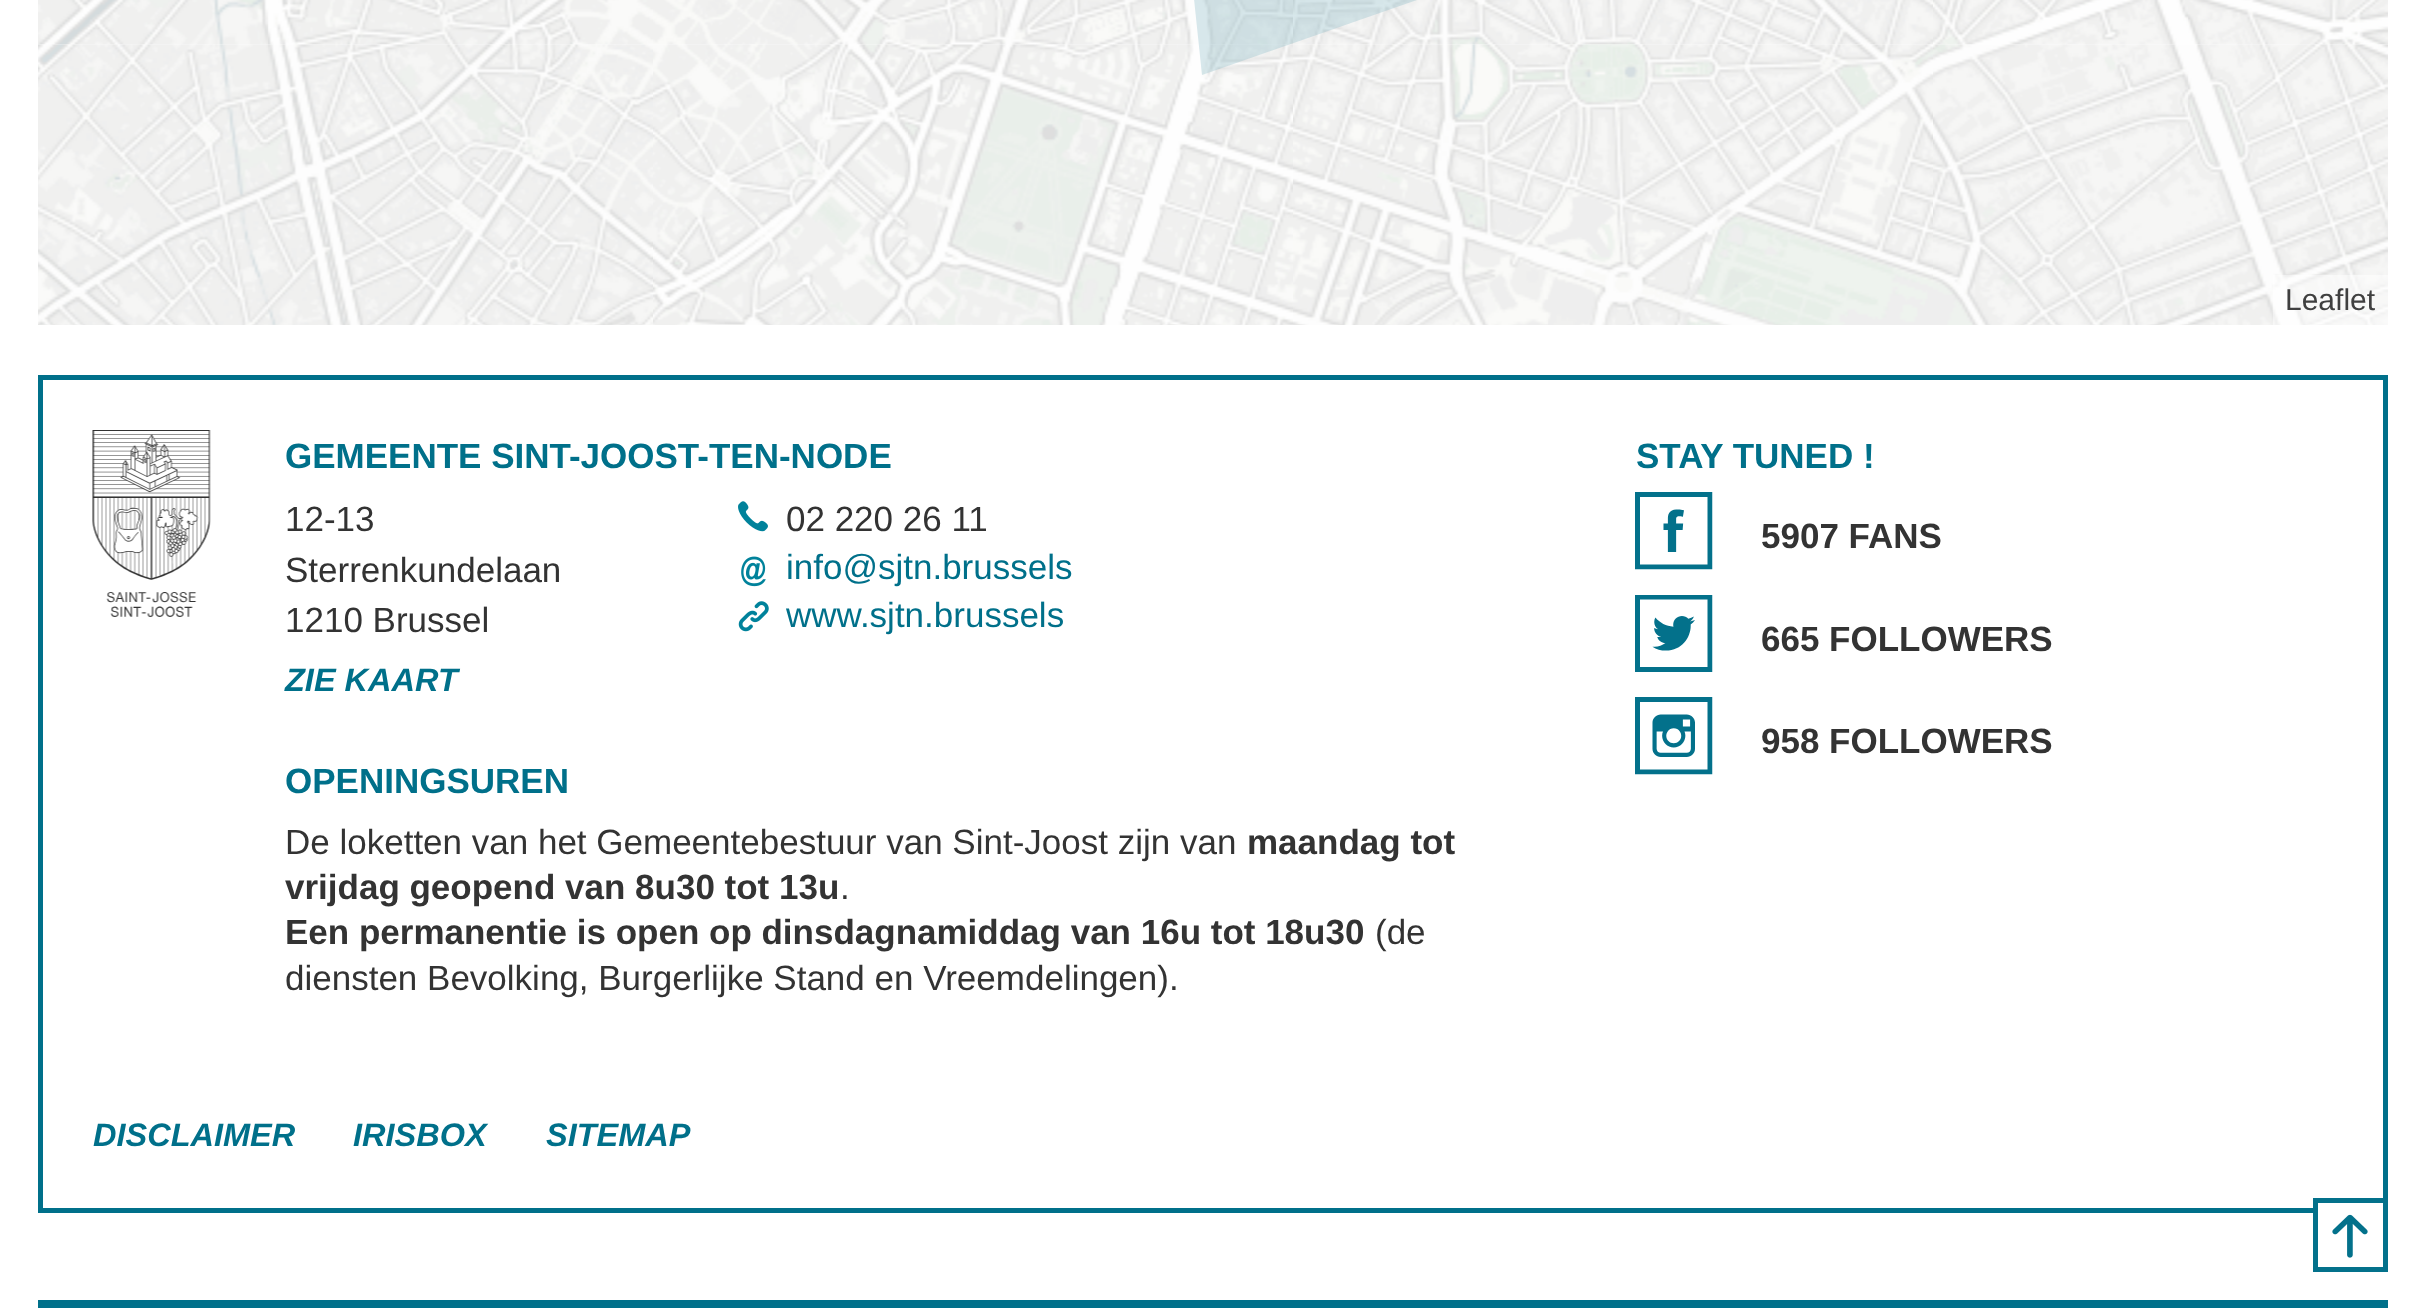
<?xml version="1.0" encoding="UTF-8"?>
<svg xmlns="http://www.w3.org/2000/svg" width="2423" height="1308">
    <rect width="100%" height="100%" fill="#FFFFFF"/>
    <image x="38" y="0" width="615" height="45" href="img_01.png"/>
    <image x="653" y="0" width="640" height="45" href="img_02.png"/>
    <image x="1293" y="0" width="640" height="45" href="img_03.png"/>
    <image x="1933" y="0" width="455" height="45" href="img_04.png"/>
    <image x="38" y="44" width="615" height="281" href="img_05.png"/>
    <image x="653" y="44" width="640" height="281" href="img_06.png"/>
    <image x="1293" y="44" width="640" height="281" href="img_07.png"/>
    <image x="1933" y="44" width="455" height="281" href="img_08.png"/>
    <path d="M 848 -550 L 790 -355 L 1175 -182 L 1202 75 L 1480 -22 L 1632 -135 L 1158 -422 Z" fill="#80B7C4" fill-opacity="0.3" fill-rule="evenodd"/>
    <rect x="2273" y="275" width="115" height="50" fill="#FFFFFF" fill-opacity="0.5"/>
    <text x="2285" y="310" font-family="Liberation Sans" font-size="30" fill="#404040">Leaflet</text>
    <rect x="40.5" y="377.5" width="2345" height="833" fill="none" stroke="#00708A" stroke-width="5"/>
    <image x="92" y="430" width="119" height="187" href="img_09.png"/>
    <text x="285" y="468" font-family="Liberation Sans" font-size="35" font-weight="700" fill="#00708A">GEMEENTE SINT-JOOST-TEN-NODE</text>
    <text font-family="Liberation Sans" font-size="35" fill="#333333">
        <tspan x="285" y="531">12-13</tspan>
        <tspan x="285" y="582">Sterrenkundelaan</tspan>
        <tspan x="285" y="632">1210 Brussel</tspan>
    </text>
    <text x="285" y="691" font-family="Liberation Sans" font-size="32.5" font-weight="700" font-style="italic" fill="#00708A">ZIE KAART</text>
    <image x="738" y="501" width="30" height="31" href="img_10.png"/>
    <text x="786" y="531" font-family="Liberation Sans" font-size="35" fill="#333333">02 220 26 11</text>
    <image x="741" y="556" width="25" height="31" href="img_11.png"/>
    <text x="786" y="579" font-family="Liberation Sans" font-size="35" fill="#00708A">info@sjtn.brussels</text>
    <image x="738" y="601" width="31" height="31" href="img_12.png"/>
    <text x="786" y="627" font-family="Liberation Sans" font-size="35" fill="#00708A">www.sjtn.brussels</text>
    <text x="285" y="793" font-family="Liberation Sans" font-size="35" font-weight="700" fill="#00708A">OPENINGSUREN</text>
    <text x="285" y="854" font-family="Liberation Sans" font-size="35" fill="#333333">De loketten van het Gemeentebestuur van Sint-Joost zijn van</text>
    <text x="1247" y="854" font-family="Liberation Sans" font-size="35" font-weight="700" fill="#333333">maandag tot</text>
    <text x="285" y="899" font-family="Liberation Sans" font-size="35" font-weight="700" fill="#333333">vrijdag geopend van 8u30 tot 13u</text>
    <text x="840" y="899" font-family="Liberation Sans" font-size="35" fill="#333333">.</text>
    <text x="285" y="944" font-family="Liberation Sans" font-size="35" font-weight="700" fill="#333333">Een permanentie is open op dinsdagnamiddag van 16u tot 18u30</text>
    <text x="1375" y="944" font-family="Liberation Sans" font-size="35" fill="#333333">(de</text>
    <text x="285" y="990" font-family="Liberation Sans" font-size="35" fill="#333333">diensten Bevolking, Burgerlijke Stand en Vreemdelingen).</text>
    <text x="1636" y="468" font-family="Liberation Sans" font-size="35" font-weight="700" fill="#00708A">STAY TUNED !</text>
    <image x="1635" y="492" width="78" height="78" href="img_13.png"/>
    <text x="1761" y="548" font-family="Liberation Sans" font-size="35" font-weight="700" fill="#333333">5907 FANS</text>
    <image x="1635" y="595" width="78" height="77" href="img_14.png"/>
    <text x="1761" y="651" font-family="Liberation Sans" font-size="35" font-weight="700" fill="#333333">665 FOLLOWERS</text>
    <image x="1635" y="697" width="78" height="78" href="img_15.png"/>
    <text x="1761" y="753" font-family="Liberation Sans" font-size="35" font-weight="700" fill="#333333">958 FOLLOWERS</text>
    <text x="93" y="1146" font-family="Liberation Sans" font-size="32.5" font-weight="700" font-style="italic" fill="#00708A">DISCLAIMER</text>
    <text x="353" y="1146" font-family="Liberation Sans" font-size="32.5" font-weight="700" font-style="italic" fill="#00708A">IRISBOX</text>
    <text x="546" y="1146" font-family="Liberation Sans" font-size="32.5" font-weight="700" font-style="italic" fill="#00708A">SITEMAP</text>
    <rect x="2313" y="1203" width="75" height="10" fill="#FFFFFF"/>
    <image x="2313" y="1198" width="75" height="74" href="img_16.png"/>
    <rect x="38" y="1300" width="2350" height="8" fill="#00708A"/>
</svg>
